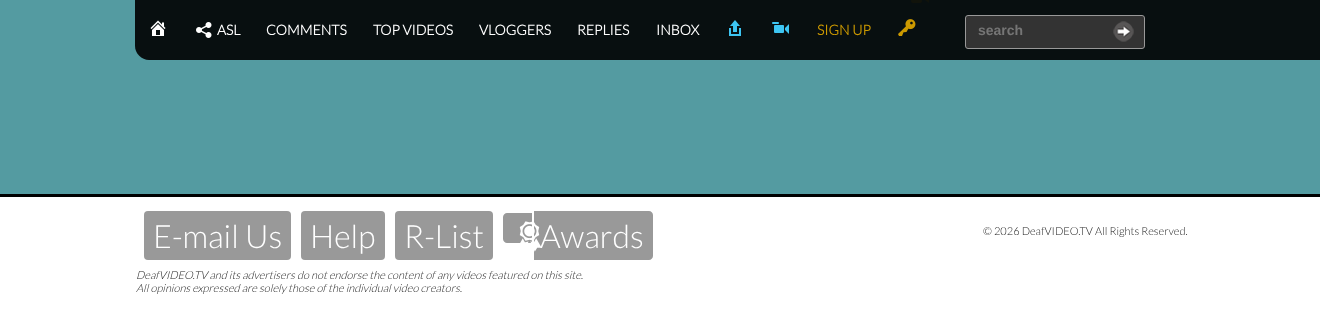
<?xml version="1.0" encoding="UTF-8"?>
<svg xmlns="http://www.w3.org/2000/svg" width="1320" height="312">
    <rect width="100%" height="100%" fill="#549BA1"/>
    <image x="911" y="0" width="18" height="3" href="img_01.png"/>
    <path d="M 135 0 H 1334 V 60 H 149 C 141.5 60 135 53.5 135 46 Z" fill="#000000" fill-opacity="0.9"/>
    <image x="150" y="20" width="16" height="16" href="img_02.png"/>
    <image x="196" y="22" width="16" height="16" href="img_03.png"/>
    <text x="217" y="35" font-family="Lato" font-size="14" font-weight="700" fill="#FFFFFF">ASL</text>
    <text x="266" y="35" font-family="Lato" font-size="14" font-weight="700" fill="#FFFFFF">COMMENTS</text>
    <text x="373" y="35" font-family="Lato" font-size="14" font-weight="700" fill="#FFFFFF">TOP VIDEOS</text>
    <text x="479" y="35" font-family="Lato" font-size="14" font-weight="700" fill="#FFFFFF">VLOGGERS</text>
    <text x="577" y="35" font-family="Lato" font-size="14" font-weight="700" fill="#FFFFFF">REPLIES</text>
    <text x="656" y="35" font-family="Lato" font-size="14" font-weight="700" fill="#FFFFFF">INBOX</text>
    <image x="729" y="20" width="12" height="16" href="img_04.png"/>
    <image x="772" y="22" width="17" height="12" href="img_05.png"/>
    <text x="817" y="35" font-family="Lato" font-size="14" font-weight="700" fill="#CC9900">SIGN UP</text>
    <image x="898" y="19" width="18" height="17" href="img_06.png"/>
    <rect x="965.5" y="15.5" width="179" height="33" rx="2.5" fill="#333333" stroke="#999999"/>
    <text x="978" y="35" font-family="Liberation Sans" font-size="14" font-weight="700" fill="#757575">search</text>
    <image x="1113" y="21" width="21" height="21" href="img_07.png"/>
    <rect x="0" y="194" width="1320" height="3" fill="#000000"/>
    <rect x="0" y="197" width="1320" height="115" fill="#FFFFFF"/>
    <rect x="144" y="211" width="147" height="49" rx="4" fill="#999999"/>
    <text x="153" y="248" font-family="Lato" font-size="32" font-weight="300" fill="#FFFFFF">E-mail Us</text>
    <rect x="301" y="211" width="84" height="49" rx="4" fill="#999999"/>
    <text x="310" y="248" font-family="Lato" font-size="32" font-weight="300" fill="#FFFFFF">Help</text>
    <rect x="395" y="211" width="98" height="49" rx="4" fill="#999999"/>
    <text x="404" y="248" font-family="Lato" font-size="32" font-weight="300" fill="#FFFFFF">R-List</text>
    <path d="M 507 213 H 532 V 243 H 507 C 505 243 503 241 503 239 V 217 C 503 215 505 213 507 213 Z" fill="#999999"/>
    <path d="M 534 211 H 649 C 651 211 653 213 653 215 V 256 C 653 258 651 260 649 260 H 534 Z" fill="#999999"/>
    <image x="519" y="221" width="23" height="31" href="img_08.png"/>
    <text x="540" y="248" font-family="Lato" font-size="32" font-weight="300" fill="#FFFFFF">Awards</text>
    <text font-family="Lato" font-size="11" font-weight="300" font-style="italic" fill="#222222">
        <tspan x="136" y="279">DeafVIDEO.TV and its advertisers do not endorse the content of any videos featured on this site.</tspan>
        <tspan x="136" y="292">All opinions expressed are solely those of the individual video creators.</tspan>
    </text>
    <text x="983" y="235" font-family="Lato" font-size="11" font-weight="300" fill="#222222">© 2026 DeafVIDEO.TV All Rights Reserved.</text>
</svg>
